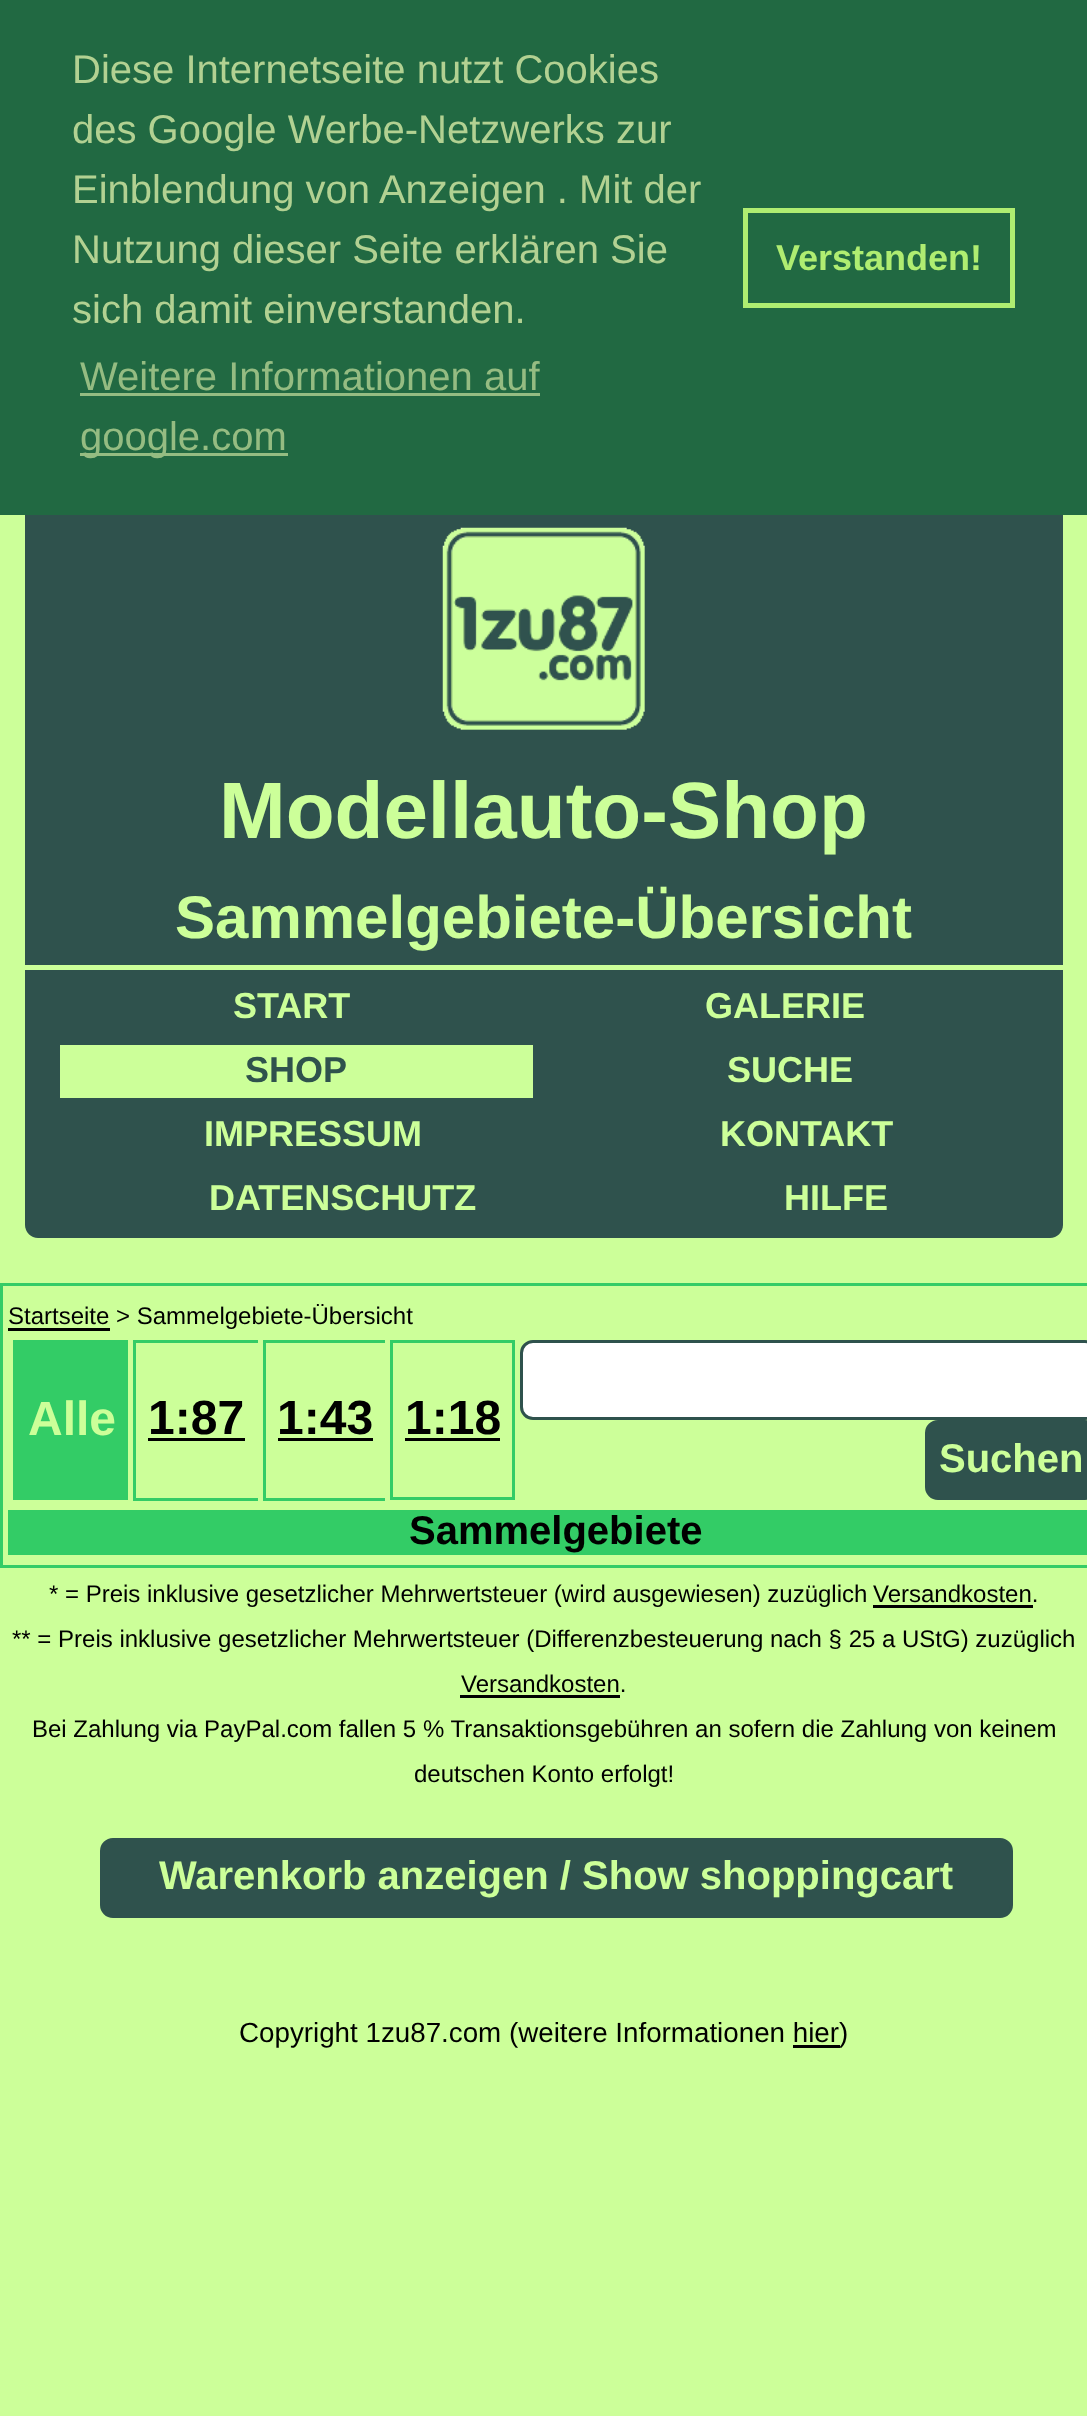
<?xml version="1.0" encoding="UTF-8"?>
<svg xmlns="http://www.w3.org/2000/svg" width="1087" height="2416">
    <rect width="100%" height="100%" fill="#CCFF99"/>
    <rect x="0" y="0" width="1087" height="515" fill="#216942"/>
    <text font-family="Liberation Sans" font-size="40" fill="#B2D192">
        <tspan x="72" y="83">Diese Internetseite nutzt Cookies</tspan>
        <tspan x="72" y="143">des Google Werbe-Netzwerks zur</tspan>
        <tspan x="72" y="203">Einblendung von Anzeigen . Mit der</tspan>
        <tspan x="72" y="263">Nutzung dieser Seite erklären Sie</tspan>
        <tspan x="72" y="323">sich damit einverstanden.</tspan>
    </text>
    <text x="80" y="390" font-family="Liberation Sans" font-size="40" fill="#95BC82">Weitere Informationen auf</text>
    <rect x="80" y="393" width="460" height="3" fill="#95BC82"/>
    <rect x="80" y="453" width="208" height="3" fill="#95BC82"/>
    <text x="80" y="450" font-family="Liberation Sans" font-size="40" fill="#95BC82">google.com</text>
    <rect x="745.5" y="210.5" width="267" height="95" fill="none" stroke="#AFED71" stroke-width="5"/>
    <text x="776" y="270" font-family="Liberation Sans" font-size="36" font-weight="700" fill="#AFED71">Verstanden!</text>
    <path d="M 25 515 H 1063 V 1225 C 1063 1232 1057 1238 1050 1238 H 38 C 31 1238 25 1232 25 1225 Z" fill="#2F524D"/>
    <image x="442" y="527" width="203" height="203" href="img_01.png"/>
    <text x="219" y="838" font-family="Liberation Sans" font-size="80" font-weight="700" fill="#CCFF99">Modellauto-Shop</text>
    <text x="175" y="938" font-family="Liberation Sans" font-size="60" font-weight="700" fill="#CCFF99">Sammelgebiete-Übersicht</text>
    <rect x="25" y="965" width="1038" height="5" fill="#CCFF99"/>
    <text x="233" y="1018" font-family="Liberation Sans" font-size="36" font-weight="700" fill="#CCFF99">START</text>
    <text x="705" y="1018" font-family="Liberation Sans" font-size="36" font-weight="700" fill="#CCFF99">GALERIE</text>
    <rect x="60" y="1045" width="473" height="53" fill="#CCFF99"/>
    <text x="245" y="1082" font-family="Liberation Sans" font-size="36" font-weight="700" fill="#2F524D">SHOP</text>
    <text x="727" y="1082" font-family="Liberation Sans" font-size="36" font-weight="700" fill="#CCFF99">SUCHE</text>
    <text x="204" y="1146" font-family="Liberation Sans" font-size="36" font-weight="700" fill="#CCFF99">IMPRESSUM</text>
    <text x="720" y="1146" font-family="Liberation Sans" font-size="36" font-weight="700" fill="#CCFF99">KONTAKT</text>
    <text x="209" y="1210" font-family="Liberation Sans" font-size="36" font-weight="700" fill="#CCFF99">DATENSCHUTZ</text>
    <text x="784" y="1210" font-family="Liberation Sans" font-size="36" font-weight="700" fill="#CCFF99">HILFE</text>
    <rect x="1.5" y="1284.5" width="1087" height="282" fill="none" stroke="#33CC66" stroke-width="3"/>
    <rect x="8" y="1328" width="102" height="3" fill="#000000"/>
    <text x="8" y="1324" font-family="Liberation Sans" font-size="24" fill="#000000">Startseite &gt; Sammelgebiete-Übersicht</text>
    <rect x="16" y="1343" width="112" height="157" fill="#33CC66"/>
    <rect x="13" y="1340" width="115" height="3" fill="#33CC66"/>
    <rect x="13" y="1340" width="3" height="160" fill="#33CC66"/>
    <text x="28" y="1435" font-family="Liberation Sans" font-size="48" font-weight="700" fill="#CCFF99">Alle</text>
    <rect x="133" y="1340" width="125" height="3" fill="#33CC66"/>
    <rect x="133" y="1498" width="125" height="3" fill="#33CC66"/>
    <rect x="133" y="1340" width="3" height="160" fill="#33CC66"/>
    <text x="148" y="1434" font-family="Liberation Sans" font-size="48" font-weight="700" fill="#000000">1:87</text>
    <rect x="148" y="1438" width="97" height="3" fill="#000000"/>
    <rect x="263" y="1340" width="122" height="3" fill="#33CC66"/>
    <rect x="263" y="1498" width="122" height="3" fill="#33CC66"/>
    <rect x="263" y="1340" width="3" height="160" fill="#33CC66"/>
    <text x="277" y="1434" font-family="Liberation Sans" font-size="48" font-weight="700" fill="#000000">1:43</text>
    <rect x="278" y="1438" width="95" height="3" fill="#000000"/>
    <rect x="391.5" y="1341.5" width="122" height="157" fill="none" stroke="#33CC66" stroke-width="3"/>
    <text x="405" y="1434" font-family="Liberation Sans" font-size="48" font-weight="700" fill="#000000">1:18</text>
    <rect x="405" y="1438" width="95" height="3" fill="#000000"/>
    <rect x="521.5" y="1341.5" width="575" height="77" rx="11.5" fill="#FFFFFF" stroke="#2F524D" stroke-width="3"/>
    <rect x="926.5" y="1421.5" width="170" height="77" rx="11.5" fill="#2F524D" stroke="#2F524D" stroke-width="3"/>
    <text x="939" y="1472" font-family="Liberation Sans" font-size="40" font-weight="700" fill="#CCFF99">Suchen</text>
    <rect x="8" y="1510" width="1079" height="45" fill="#33CC66"/>
    <text x="409" y="1544" font-family="Liberation Sans" font-size="40" font-weight="700" fill="#000000">Sammelgebiete</text>
    <text x="49" y="1602" font-family="Liberation Sans" font-size="24" fill="#000000">* = Preis inklusive gesetzlicher Mehrwertsteuer (wird ausgewiesen) zuzüglich</text>
    <text x="873" y="1602" font-family="Liberation Sans" font-size="24" fill="#000000">Versandkosten.</text>
    <rect x="873" y="1605" width="160" height="3" fill="#000000"/>
    <text x="12" y="1647" font-family="Liberation Sans" font-size="24" fill="#000000">** = Preis inklusive gesetzlicher Mehrwertsteuer (Differenzbesteuerung nach § 25 a UStG) zuzüglich</text>
    <text x="461" y="1692" font-family="Liberation Sans" font-size="24" fill="#000000">Versandkosten.</text>
    <rect x="460" y="1695" width="160" height="3" fill="#000000"/>
    <text x="32" y="1737" font-family="Liberation Sans" font-size="24" fill="#000000">Bei Zahlung via PayPal.com fallen 5 % Transaktionsgebühren an sofern die Zahlung von keinem</text>
    <text x="414" y="1782" font-family="Liberation Sans" font-size="24" fill="#000000">deutschen Konto erfolgt!</text>
    <rect x="101.5" y="1839.5" width="910" height="77" rx="11.5" fill="#2F524D" stroke="#2F524D" stroke-width="3"/>
    <text x="159" y="1889" font-family="Liberation Sans" font-size="40" font-weight="700" fill="#CCFF99">Warenkorb anzeigen / Show shoppingcart</text>
    <text x="239" y="2042" font-family="Liberation Sans" font-size="27.75" fill="#000000">Copyright 1zu87.com (weitere Informationen hier</text>
    <rect x="793" y="2045" width="47" height="3" fill="#000000"/>
    <text x="839" y="2042" font-family="Liberation Sans" font-size="27.75" fill="#000000">)</text>
</svg>
